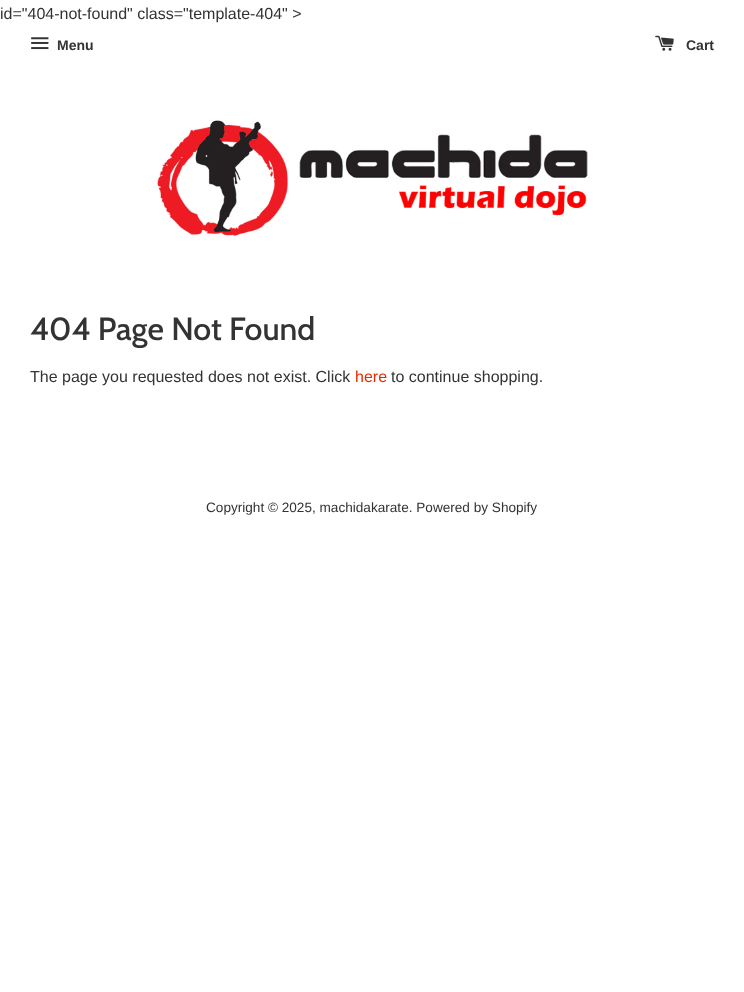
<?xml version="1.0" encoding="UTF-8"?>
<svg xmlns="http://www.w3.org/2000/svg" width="744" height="992">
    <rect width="100%" height="100%" fill="#FFFFFF"/>
    <text x="0" y="19" font-family="Liberation Sans" font-size="16" fill="#333333">id="404-not-found" class="template-404" &gt;</text>
    <image x="31" y="37" width="18" height="13" href="img_01.png"/>
    <text x="57" y="50" font-family="Liberation Sans" font-size="14" font-weight="700" fill="#333333">Menu</text>
    <image x="655" y="35" width="19" height="16" href="img_02.png"/>
    <text x="686" y="50" font-family="Liberation Sans" font-size="14" font-weight="700" fill="#333333">Cart</text>
    <image x="157" y="120" width="431" height="116" href="img_03.png"/>
    <text x="30" y="340" font-family="Cabin" font-size="32" font-weight="500" fill="#333333">404 Page Not Found</text>
    <text x="30" y="382" font-family="Liberation Sans" font-size="16" fill="#333333">The page you requested does not exist. Click</text>
    <text x="355" y="382" font-family="Liberation Sans" font-size="16" fill="#E42C00">here</text>
    <text x="391" y="382" font-family="Liberation Sans" font-size="16" fill="#333333">to continue shopping.</text>
    <text x="206" y="512" font-family="Liberation Sans" font-size="13.6" fill="#333333">Copyright © 2025, machidakarate. Powered by Shopify</text>
</svg>
